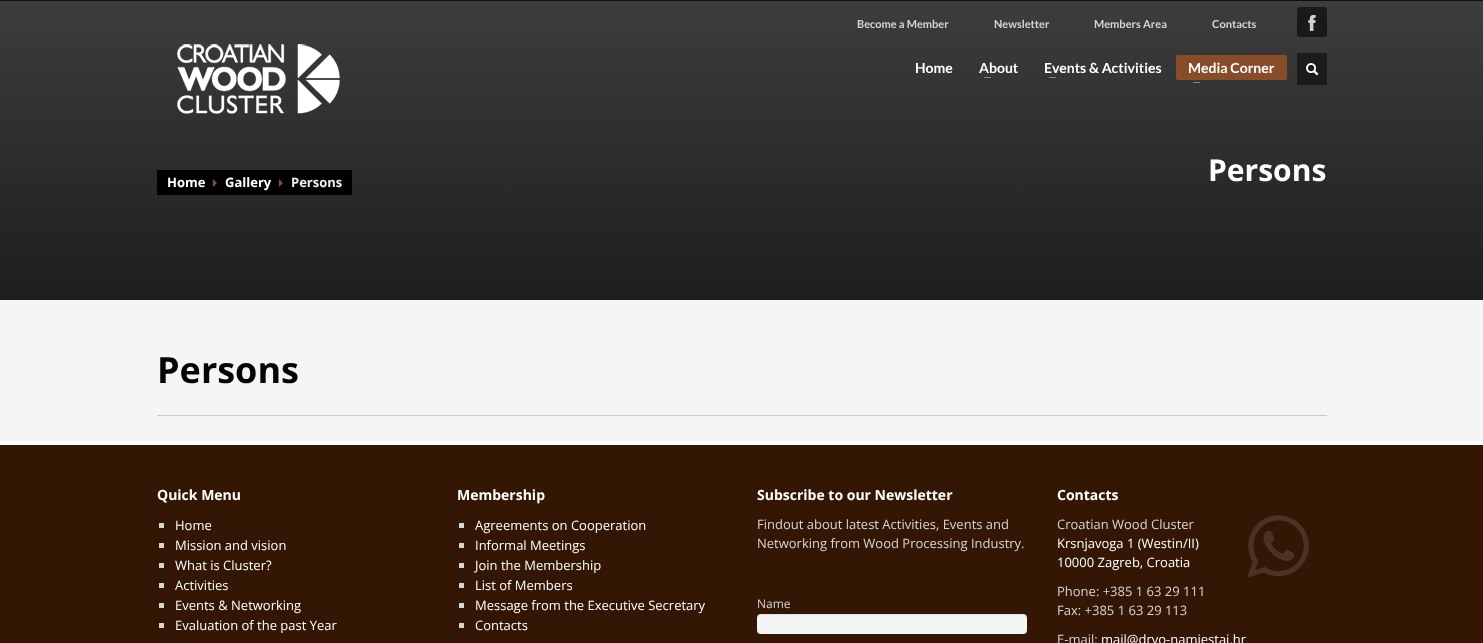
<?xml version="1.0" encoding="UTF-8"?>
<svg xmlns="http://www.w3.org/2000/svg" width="1483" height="643">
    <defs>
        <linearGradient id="g1" gradientUnits="userSpaceOnUse" x1="742" y1="0" x2="742" y2="300"><stop offset="0" stop-color="#3D3D3D"/><stop offset="1" stop-color="#1E1E1E"/></linearGradient>
        <linearGradient id="g2" gradientUnits="userSpaceOnUse" x1="742" y1="0" x2="742" y2="300"><stop offset="0" stop-color="#1F1F1F"/><stop offset="1" stop-color="#0F0F0F"/></linearGradient>
    </defs>
    <rect width="100%" height="100%" fill="#F5F5F5"/>
    <rect x="0" y="0" width="1483" height="1" fill="#0F0F0F"/>
    <rect x="0" y="1" width="1483" height="299" fill="url(#g1)"/>
    <text x="857" y="28" font-family="Lato" font-size="11" font-weight="700" fill="#D5D5D5">Become a Member</text>
    <text x="994" y="28" font-family="Lato" font-size="11" font-weight="700" fill="#D5D5D5">Newsletter</text>
    <text x="1094" y="28" font-family="Lato" font-size="11" font-weight="700" fill="#D5D5D5">Members Area</text>
    <text x="1212" y="28" font-family="Lato" font-size="11" font-weight="700" fill="#D5D5D5">Contacts</text>
    <rect x="1297" y="7" width="30" height="30" rx="3" fill="#111111" fill-opacity="0.8"/>
    <image x="1308" y="15" width="8" height="16" href="img_01.png"/>
    <image x="177" y="44" width="163" height="70" href="img_02.png"/>
    <text x="915" y="73" font-family="Lato" font-size="14" font-weight="700" fill="#FFFFFF">Home</text>
    <text x="979" y="73" font-family="Lato" font-size="14" font-weight="700" fill="#FFFFFF">About</text>
    <rect x="984" y="77" width="7" height="1" fill="#868686"/>
    <text x="1044" y="73" font-family="Lato" font-size="14" font-weight="700" fill="#FFFFFF">Events &amp; Activities</text>
    <rect x="1049" y="77" width="7" height="1" fill="#868686"/>
    <rect x="1176" y="55" width="111" height="25" rx="2" fill="#884C28"/>
    <text x="1188" y="73" font-family="Lato" font-size="14" font-weight="700" fill="#FFFFFF">Media Corner</text>
    <rect x="1193" y="82" width="7" height="1" fill="#858585"/>
    <rect x="1297" y="53" width="30" height="32" fill="url(#g2)"/>
    <image x="1306" y="63" width="13" height="13" href="img_03.png"/>
    <text x="1208" y="181" font-family="Open Sans" font-size="30" font-weight="700" fill="#FFFFFF">Persons</text>
    <rect x="157" y="170" width="195" height="25" fill="#000000"/>
    <text x="167" y="187" font-family="Open Sans" font-size="13" font-weight="700" fill="#FFFFFF">Home</text>
    <path d="M 213 187 V 179 L 217 183 Z" fill="#884C28"/>
    <text x="225" y="187" font-family="Open Sans" font-size="13" font-weight="700" fill="#FFFFFF">Gallery</text>
    <path d="M 279 187 V 179 L 283 183 Z" fill="#884C28"/>
    <text x="291" y="187" font-family="Open Sans" font-size="13" font-weight="700" fill="#EEEEEE">Persons</text>
    <rect x="157" y="415" width="1170" height="1" fill="#CBCBCB"/>
    <text x="157" y="383" font-family="Open Sans" font-size="36" font-weight="700" fill="#050505">Persons</text>
    <rect x="0" y="445" width="1483" height="198" fill="#331604"/>
    <rect x="0" y="441" width="1483" height="4" fill="#FFFFFF"/>
    <text x="157" y="500" font-family="Open Sans" font-size="14" font-weight="700" fill="#FFFFFF">Quick Menu</text>
    <rect x="159" y="523" width="5" height="5" fill="#D5D5D5"/>
    <text x="175" y="530" font-family="Open Sans" font-size="13" fill="#FFFFFF">Home</text>
    <rect x="159" y="543" width="5" height="5" fill="#D5D5D5"/>
    <text x="175" y="550" font-family="Open Sans" font-size="13" fill="#FFFFFF">Mission and vision</text>
    <rect x="159" y="563" width="5" height="5" fill="#D5D5D5"/>
    <text x="175" y="570" font-family="Open Sans" font-size="13" fill="#FFFFFF">What is Cluster?</text>
    <rect x="159" y="583" width="5" height="5" fill="#D5D5D5"/>
    <text x="175" y="590" font-family="Open Sans" font-size="13" fill="#FFFFFF">Activities</text>
    <rect x="159" y="603" width="5" height="5" fill="#D5D5D5"/>
    <text x="175" y="610" font-family="Open Sans" font-size="13" fill="#FFFFFF">Events &amp; Networking</text>
    <rect x="159" y="623" width="5" height="5" fill="#D5D5D5"/>
    <text x="175" y="630" font-family="Open Sans" font-size="13" fill="#FFFFFF">Evaluation of the past Year</text>
    <text x="457" y="500" font-family="Open Sans" font-size="14" font-weight="700" fill="#FFFFFF">Membership</text>
    <rect x="459" y="523" width="5" height="5" fill="#D5D5D5"/>
    <text x="475" y="530" font-family="Open Sans" font-size="13" fill="#FFFFFF">Agreements on Cooperation</text>
    <rect x="459" y="543" width="5" height="5" fill="#D5D5D5"/>
    <text x="475" y="550" font-family="Open Sans" font-size="13" fill="#FFFFFF">Informal Meetings</text>
    <rect x="459" y="563" width="5" height="5" fill="#D5D5D5"/>
    <text x="475" y="570" font-family="Open Sans" font-size="13" fill="#FFFFFF">Join the Membership</text>
    <rect x="459" y="583" width="5" height="5" fill="#D5D5D5"/>
    <text x="475" y="590" font-family="Open Sans" font-size="13" fill="#FFFFFF">List of Members</text>
    <rect x="459" y="603" width="5" height="5" fill="#D5D5D5"/>
    <text x="475" y="610" font-family="Open Sans" font-size="13" fill="#FFFFFF">Message from the Executive Secretary</text>
    <rect x="459" y="623" width="5" height="5" fill="#D5D5D5"/>
    <text x="475" y="630" font-family="Open Sans" font-size="13" fill="#FFFFFF">Contacts</text>
    <text x="757" y="500" font-family="Open Sans" font-size="14" font-weight="700" fill="#FFFFFF">Subscribe to our Newsletter</text>
    <text font-family="Open Sans" font-size="13" fill="#D5D5D5">
        <tspan x="757" y="529">Findout about latest Activities, Events and</tspan>
        <tspan x="757" y="548">Networking from Wood Processing Industry.</tspan>
    </text>
    <text x="757" y="608" font-family="Open Sans" font-size="12" fill="#D5D5D5">Name</text>
    <rect x="757" y="614" width="270" height="20" rx="4" fill="#F4F4F4"/>
    <path d="M 761 615 H 1023 C 1025 615 1027 617 1027 619 C 1027 616 1026 614 1023 614 H 761 C 758 614 757 616 757 619 C 757 617 759 615 761 615 Z" fill="#000000" fill-opacity="0.07"/>
    <text x="1057" y="500" font-family="Open Sans" font-size="14" font-weight="700" fill="#FFFFFF">Contacts</text>
    <image x="1247" y="515" width="62" height="63" href="img_04.png"/>
    <text x="1057" y="529" font-family="Open Sans" font-size="13" fill="#D5D5D5">Croatian Wood Cluster</text>
    <text font-family="Open Sans" font-size="13" fill="#FFFFFF">
        <tspan x="1057" y="548">Krsnjavoga 1 (Westin/II)</tspan>
        <tspan x="1057" y="567">10000 Zagreb, Croatia</tspan>
    </text>
    <text font-family="Open Sans" font-size="13" fill="#D5D5D5">
        <tspan x="1057" y="596">Phone: +385 1 63 29 111</tspan>
        <tspan x="1057" y="615">Fax: +385 1 63 29 113</tspan>
    </text>
    <text x="1057" y="644" font-family="Open Sans" font-size="13" fill="#D5D5D5">E-mail:</text>
    <text x="1101" y="644" font-family="Open Sans" font-size="13" fill="#FFFFFF">mail@drvo-namjestaj.hr</text>
</svg>
